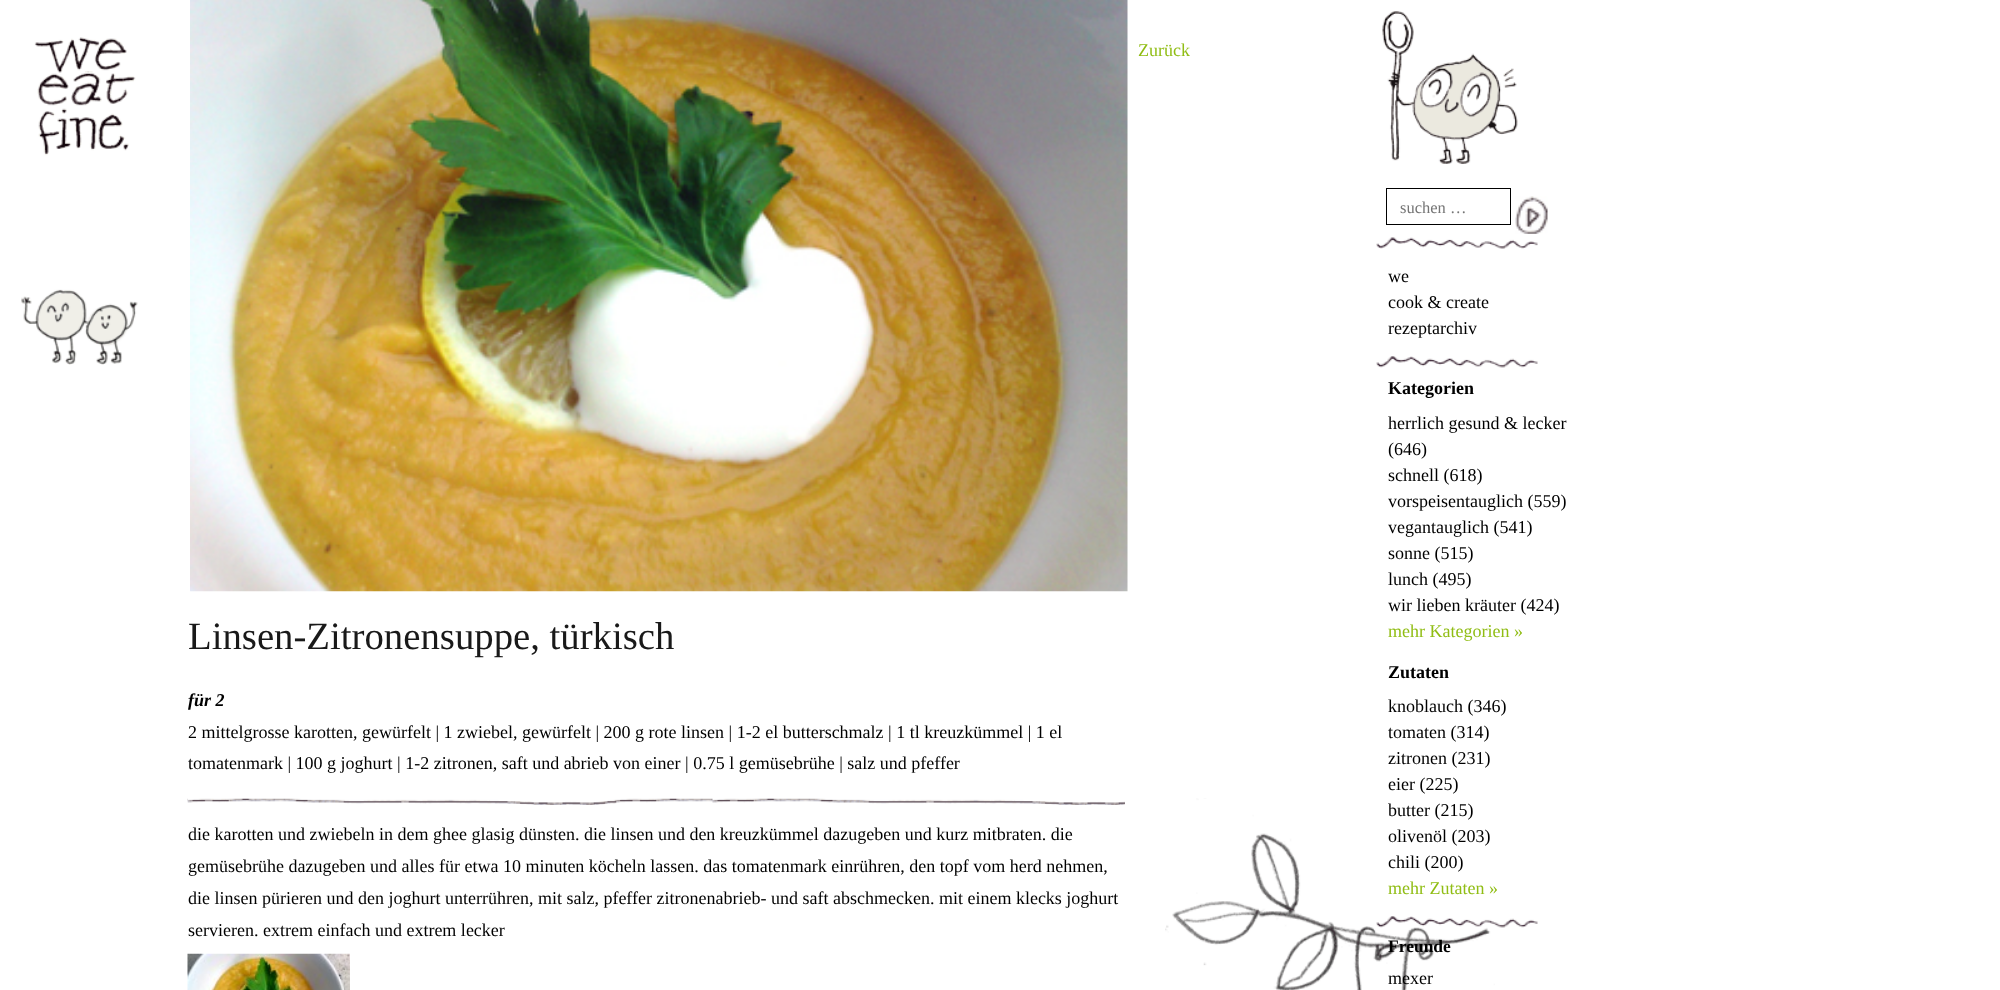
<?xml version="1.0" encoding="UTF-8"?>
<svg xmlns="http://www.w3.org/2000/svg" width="2000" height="990">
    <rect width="100%" height="100%" fill="#FFFFFF"/>
    <image x="1165" y="798" width="330" height="192" href="img_01.png"/>
    <image x="4" y="9" width="134" height="356" href="img_02.png"/>
    <text x="1138" y="56" font-family="Liberation Serif" font-size="18" fill="#90BD14">Zurück</text>
    <image x="190" y="0" width="938" height="592" href="img_03.png"/>
    <text x="188" y="649" font-family="Liberation Serif" font-size="38.75" fill="#191919">Linsen-Zitronensuppe, türkisch</text>
    <text x="188" y="706" font-family="Liberation Serif" font-size="18" font-weight="700" font-style="italic" fill="#000000">für 2</text>
    <text font-family="Liberation Serif" font-size="18" fill="#000000">
        <tspan x="188" y="738">2 mittelgrosse karotten, gewürfelt | 1 zwiebel, gewürfelt | 200 g rote linsen | 1-2 el butterschmalz | 1 tl kreuzkümmel | 1 el</tspan>
        <tspan x="188" y="769">tomatenmark | 100 g joghurt | 1-2 zitronen, saft und abrieb von einer | 0.75 l gemüsebrühe | salz und pfeffer</tspan>
    </text>
    <image x="187" y="798" width="938" height="7" href="img_04.png"/>
    <text font-family="Liberation Serif" font-size="18" fill="#000000">
        <tspan x="188" y="840">die karotten und zwiebeln in dem ghee glasig dünsten. die linsen und den kreuzkümmel dazugeben und kurz mitbraten. die</tspan>
        <tspan x="188" y="872">gemüsebrühe dazugeben und alles für etwa 10 minuten köcheln lassen. das tomatenmark einrühren, den topf vom herd nehmen,</tspan>
        <tspan x="188" y="904">die linsen pürieren und den joghurt unterrühren, mit salz, pfeffer zitronenabrieb- und saft abschmecken. mit einem klecks joghurt</tspan>
        <tspan x="188" y="936">servieren. extrem einfach und extrem lecker</tspan>
    </text>
    <image x="187" y="953" width="163" height="37" href="img_05.png"/>
    <image x="1382" y="11" width="136" height="153" href="img_06.png"/>
    <rect x="1386.5" y="188.5" width="124" height="36" fill="none" stroke="#000000"/>
    <text x="1400" y="213" font-family="Liberation Serif" font-size="16.5" fill="#757575">suchen …</text>
    <image x="1515" y="196" width="33" height="38" href="img_07.png"/>
    <image x="1376" y="237" width="162" height="12" href="img_08.png"/>
    <text font-family="Liberation Serif" font-size="18" fill="#000000">
        <tspan x="1388" y="282">we</tspan>
        <tspan x="1388" y="308">cook &amp; create</tspan>
        <tspan x="1388" y="334">rezeptarchiv</tspan>
    </text>
    <image x="1376" y="356" width="162" height="12" href="img_09.png"/>
    <text x="1388" y="394" font-family="Liberation Serif" font-size="18" font-weight="700" fill="#000000">Kategorien</text>
    <text font-family="Liberation Serif" font-size="18" fill="#000000">
        <tspan x="1388" y="429">herrlich gesund &amp; lecker</tspan>
        <tspan x="1388" y="455">(646)</tspan>
        <tspan x="1388" y="481">schnell (618)</tspan>
        <tspan x="1388" y="507">vorspeisentauglich (559)</tspan>
        <tspan x="1388" y="533">vegantauglich (541)</tspan>
        <tspan x="1388" y="559">sonne (515)</tspan>
        <tspan x="1388" y="585">lunch (495)</tspan>
        <tspan x="1388" y="611">wir lieben kräuter (424)</tspan>
    </text>
    <text x="1388" y="637" font-family="Liberation Serif" font-size="18" fill="#90BD14">mehr Kategorien »</text>
    <text x="1388" y="678" font-family="Liberation Serif" font-size="18" font-weight="700" fill="#000000">Zutaten</text>
    <text font-family="Liberation Serif" font-size="18" fill="#000000">
        <tspan x="1388" y="712">knoblauch (346)</tspan>
        <tspan x="1388" y="738">tomaten (314)</tspan>
        <tspan x="1388" y="764">zitronen (231)</tspan>
        <tspan x="1388" y="790">eier (225)</tspan>
        <tspan x="1388" y="816">butter (215)</tspan>
        <tspan x="1388" y="842">olivenöl (203)</tspan>
        <tspan x="1388" y="868">chili (200)</tspan>
    </text>
    <text x="1388" y="894" font-family="Liberation Serif" font-size="18" fill="#90BD14">mehr Zutaten »</text>
    <image x="1376" y="916" width="162" height="12" href="img_10.png"/>
    <text x="1388" y="952" font-family="Liberation Serif" font-size="17.5" font-weight="700" fill="#000000">Freunde</text>
    <text x="1388" y="984" font-family="Liberation Serif" font-size="18" fill="#000000">mexer</text>
</svg>
